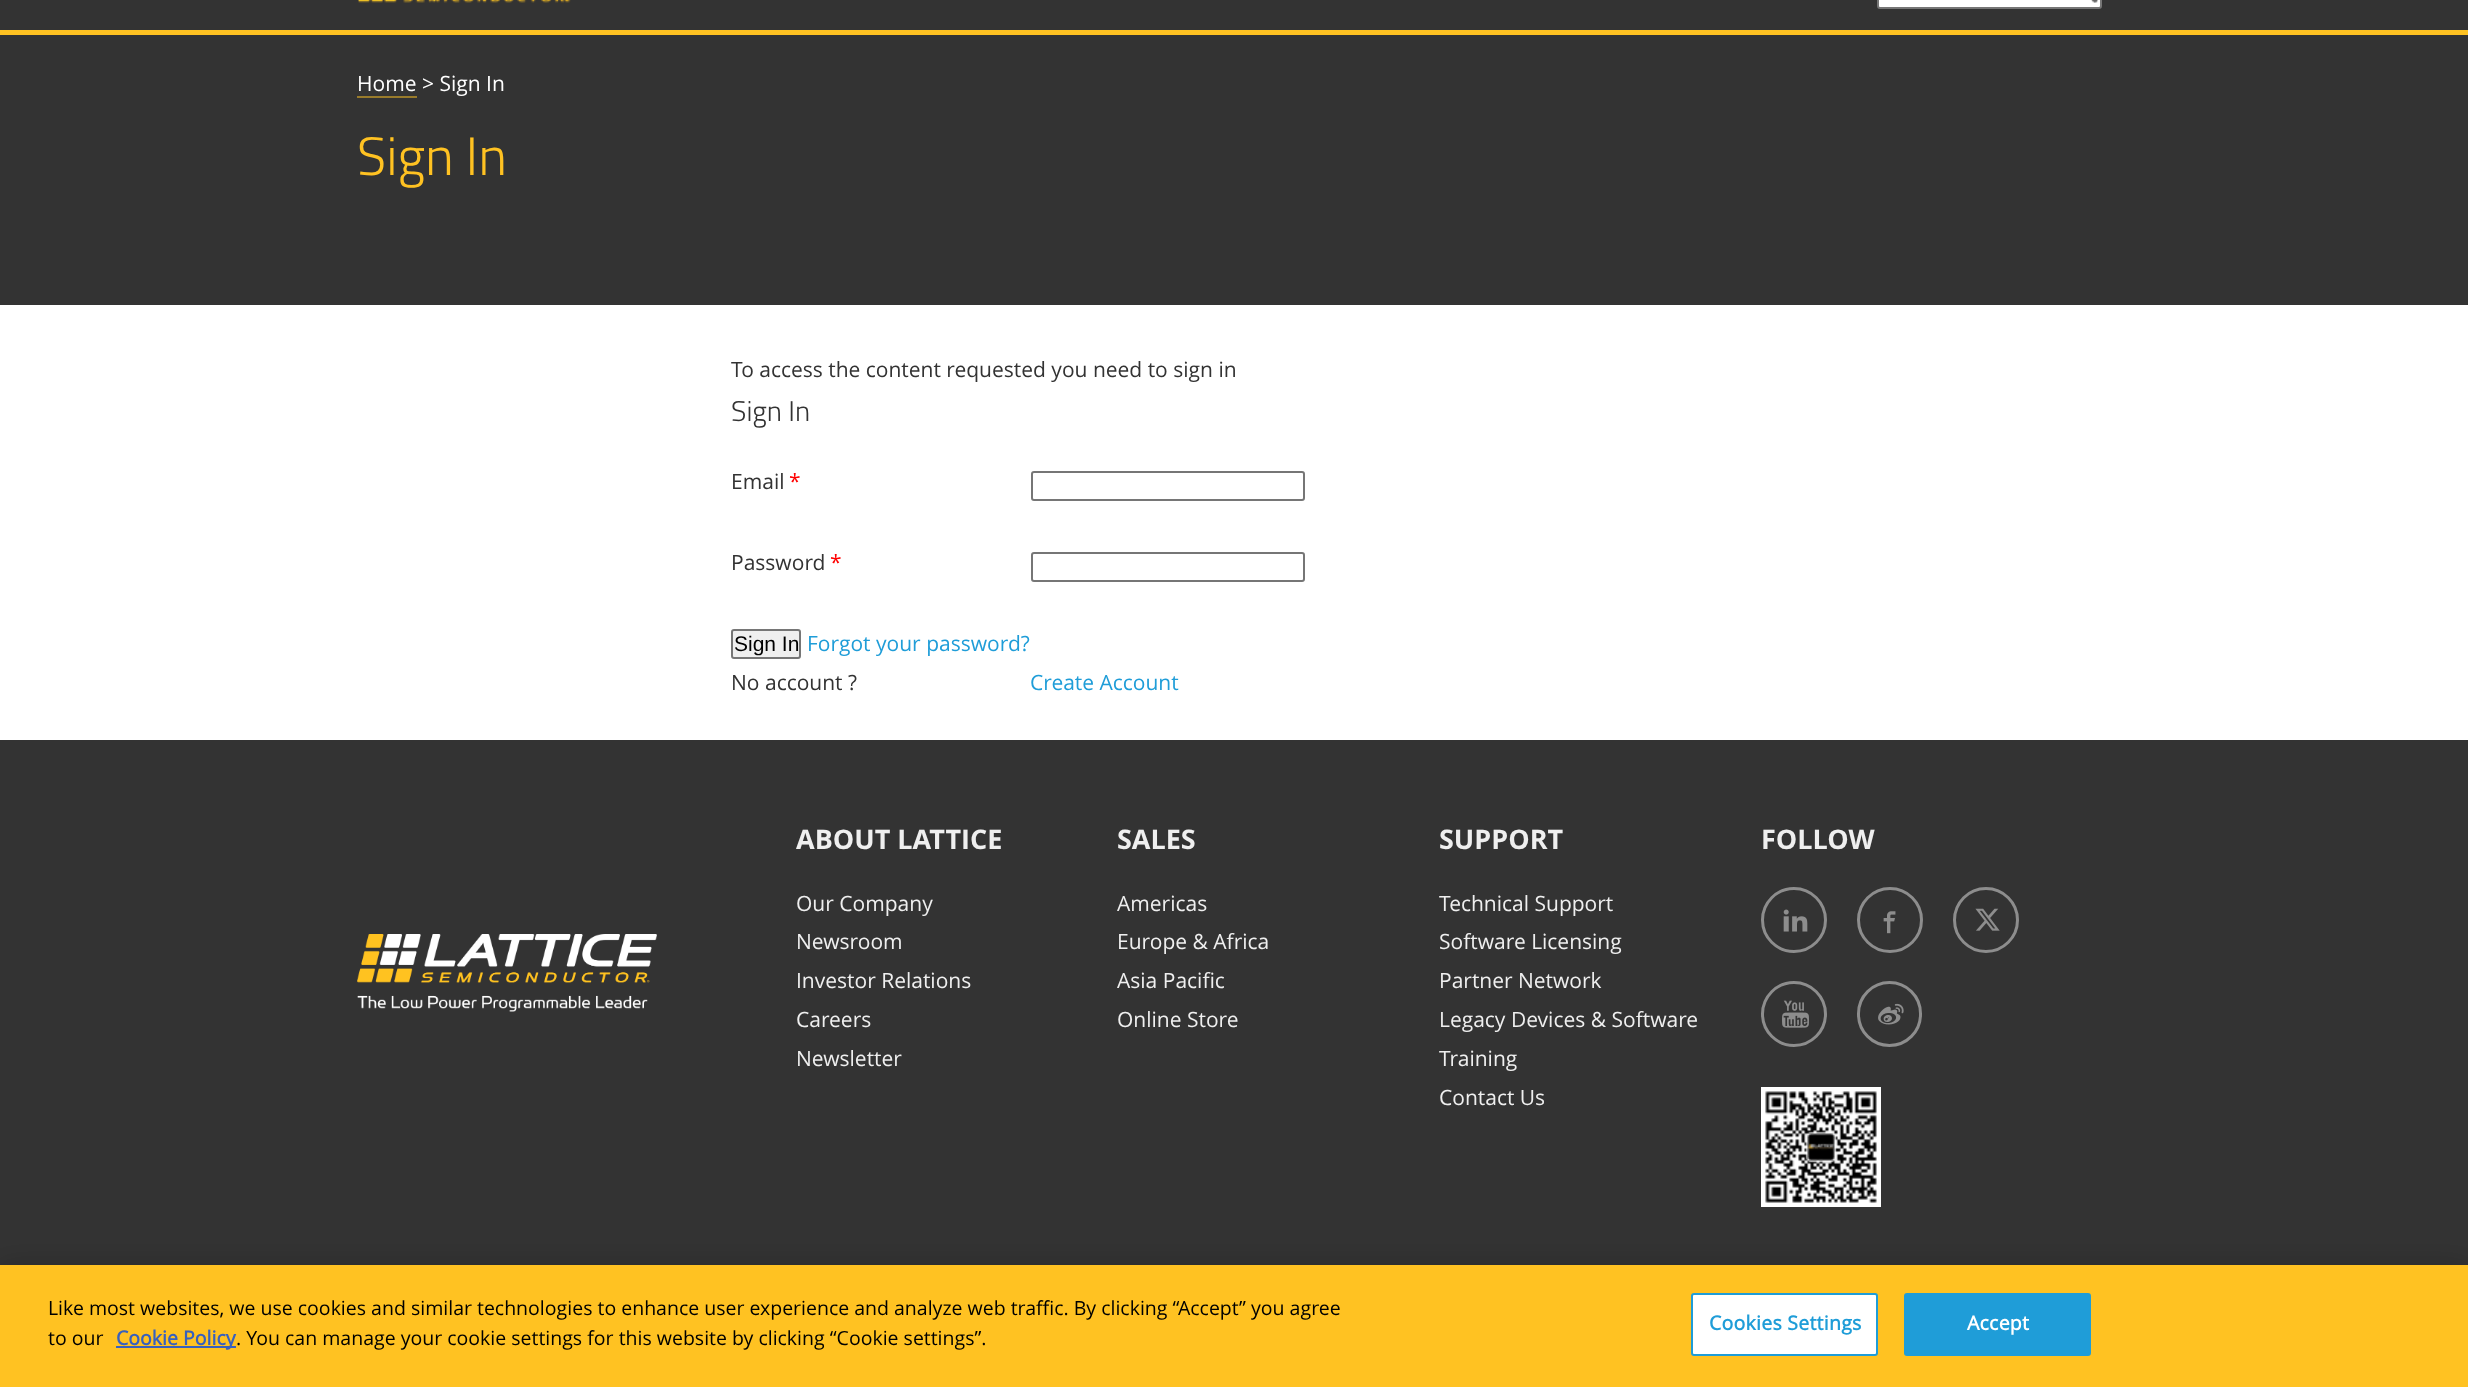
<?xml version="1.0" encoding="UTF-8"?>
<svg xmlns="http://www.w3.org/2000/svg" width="2468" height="1387">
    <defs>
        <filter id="blur1" x="-50%" y="-200%" width="200%" height="500%"><feGaussianBlur stdDeviation="13.5"/></filter>
    </defs>
    <rect width="100%" height="100%" fill="#FFFFFF"/>
    <rect x="0" y="0" width="2468" height="30" fill="#333333"/>
    <rect x="0" y="30" width="2468" height="5" fill="#FFC222"/>
    <image x="358" y="0" width="213" height="3" href="img_01.png"/>
    <rect x="1878" y="-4" width="223" height="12" rx="2" fill="#FFFFFF" stroke="#767676" stroke-width="2"/>
    <image x="2091" y="0" width="7" height="3" href="img_02.png"/>
    <image x="2091" y="0" width="7" height="3" href="img_03.png"/>
    <rect x="0" y="35" width="2468" height="270" fill="#333333"/>
    <rect x="357" y="96" width="60" height="2" fill="#997B2B"/>
    <text x="357" y="91" font-family="Open Sans" font-size="21" fill="#FFFFFF">Home &gt; Sign In</text>
    <text x="357" y="175" font-family="Titillium Web" font-size="54" font-weight="300" fill="#FFC222">Sign In</text>
    <text x="731" y="377" font-family="Open Sans" font-size="21" fill="#333333">To access the content requested you need to sign in</text>
    <text x="731" y="421" font-family="Titillium Web" font-size="28.5" font-weight="300" fill="#333333">Sign In</text>
    <text x="731" y="489" font-family="Open Sans" font-size="21" fill="#333333">Email</text>
    <text x="789" y="489" font-family="Open Sans" font-size="21" fill="#FF0000">*</text>
    <rect x="1032" y="472" width="272" height="28" rx="2" fill="none" stroke="#767676" stroke-width="2"/>
    <text x="731" y="570" font-family="Open Sans" font-size="21" fill="#333333">Password</text>
    <text x="830" y="570" font-family="Open Sans" font-size="21" fill="#FF0000">*</text>
    <rect x="1032" y="553" width="272" height="28" rx="2" fill="none" stroke="#767676" stroke-width="2"/>
    <rect x="732" y="630" width="68" height="28" rx="2" fill="#EFEFEF" stroke="#767676" stroke-width="2"/>
    <text x="734" y="651" font-family="Liberation Sans" font-size="21" fill="#000000">Sign In</text>
    <text x="807" y="651" font-family="Open Sans" font-size="21" fill="#1F9DD8">Forgot your password?</text>
    <text x="731" y="690" font-family="Open Sans" font-size="21" fill="#333333">No account ?</text>
    <text x="1030" y="690" font-family="Open Sans" font-size="21" fill="#1F9DD8">Create Account</text>
    <rect x="0" y="740" width="2468" height="525" fill="#333333"/>
    <text x="796" y="849" font-family="Open Sans" font-size="27" font-weight="700" fill="#EFEFEF">ABOUT LATTICE</text>
    <text font-family="Open Sans" font-size="21" fill="#EFEFEF">
        <tspan x="796" y="911">Our Company</tspan>
        <tspan x="796" y="949">Newsroom</tspan>
        <tspan x="796" y="988">Investor Relations</tspan>
        <tspan x="796" y="1027">Careers</tspan>
        <tspan x="796" y="1066">Newsletter</tspan>
    </text>
    <text x="1117" y="849" font-family="Open Sans" font-size="27" font-weight="700" fill="#EFEFEF">SALES</text>
    <text font-family="Open Sans" font-size="21" fill="#EFEFEF">
        <tspan x="1117" y="911">Americas</tspan>
        <tspan x="1117" y="949">Europe &amp; Africa</tspan>
        <tspan x="1117" y="988">Asia Pacific</tspan>
        <tspan x="1117" y="1027">Online Store</tspan>
    </text>
    <text x="1439" y="849" font-family="Open Sans" font-size="27" font-weight="700" fill="#EFEFEF">SUPPORT</text>
    <text font-family="Open Sans" font-size="21" fill="#EFEFEF">
        <tspan x="1439" y="911">Technical Support</tspan>
        <tspan x="1439" y="949">Software Licensing</tspan>
        <tspan x="1439" y="988">Partner Network</tspan>
        <tspan x="1439" y="1027">Legacy Devices &amp; Software</tspan>
        <tspan x="1439" y="1066">Training</tspan>
        <tspan x="1439" y="1105">Contact Us</tspan>
    </text>
    <text x="1761" y="849" font-family="Open Sans" font-size="27" font-weight="700" fill="#EFEFEF">FOLLOW</text>
    <circle cx="1794" cy="920" r="31.5" fill="none" stroke="#8D8D8D" stroke-width="3"/>
    <image x="1783" y="909" width="25" height="23" href="img_04.png"/>
    <circle cx="1890" cy="920" r="31.5" fill="none" stroke="#8D8D8D" stroke-width="3"/>
    <image x="1883" y="911" width="13" height="23" href="img_05.png"/>
    <circle cx="1986" cy="920" r="31.5" fill="none" stroke="#8D8D8D" stroke-width="3"/>
    <image x="1975" y="908" width="25" height="23" href="img_06.png"/>
    <circle cx="1794" cy="1014" r="31.5" fill="none" stroke="#8D8D8D" stroke-width="3"/>
    <image x="1782" y="1000" width="27" height="28" href="img_07.png"/>
    <rect x="1858.5" y="982.5" width="62" height="63" rx="31" fill="none" stroke="#8D8D8D" stroke-width="3"/>
    <image x="1878" y="1003" width="26" height="22" href="img_08.png"/>
    <image x="1761" y="1087" width="120" height="120" href="img_09.png"/>
    <image x="357" y="934" width="300" height="78" href="img_10.png"/>
    <rect x="0" y="1265" width="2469" height="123" fill="#000000" fill-opacity="0.2" filter="url(#blur1)"/>
    <rect x="0" y="1265" width="2468" height="122" fill="#FFC222"/>
    <text font-family="Open Sans" font-size="19.5" fill="#000000">
        <tspan x="48" y="1315">Like most websites, we use cookies and similar technologies to enhance user experience and analyze web traffic. By clicking “Accept” you agree</tspan>
        <tspan x="48" y="1345">to our</tspan>
    </text>
    <rect x="116" y="1346" width="120" height="2" fill="#3860BE"/>
    <text x="116" y="1345" font-family="'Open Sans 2'" font-size="19.5" font-weight="700" fill="#3860BE">Cookie Policy</text>
    <text x="236" y="1345" font-family="Open Sans" font-size="19.5" fill="#000000">. You can manage your cookie settings for this website by clicking “Cookie settings”.</text>
    <rect x="1692" y="1294" width="185" height="61" rx="2" fill="#FFFFFF" stroke="#1F9DD8" stroke-width="2"/>
    <text x="1709" y="1330" font-family="'Open Sans 2'" font-size="19.5" font-weight="700" letter-spacing="0.25" fill="#1F9DD8">Cookies Settings</text>
    <rect x="1905" y="1294" width="185" height="61" rx="2" fill="#1F9DD8" stroke="#1F9DD8" stroke-width="2"/>
    <text x="1967" y="1330" font-family="'Open Sans 2'" font-size="19.5" font-weight="700" letter-spacing="0.25" fill="#FFFFFF">Accept</text>
</svg>
